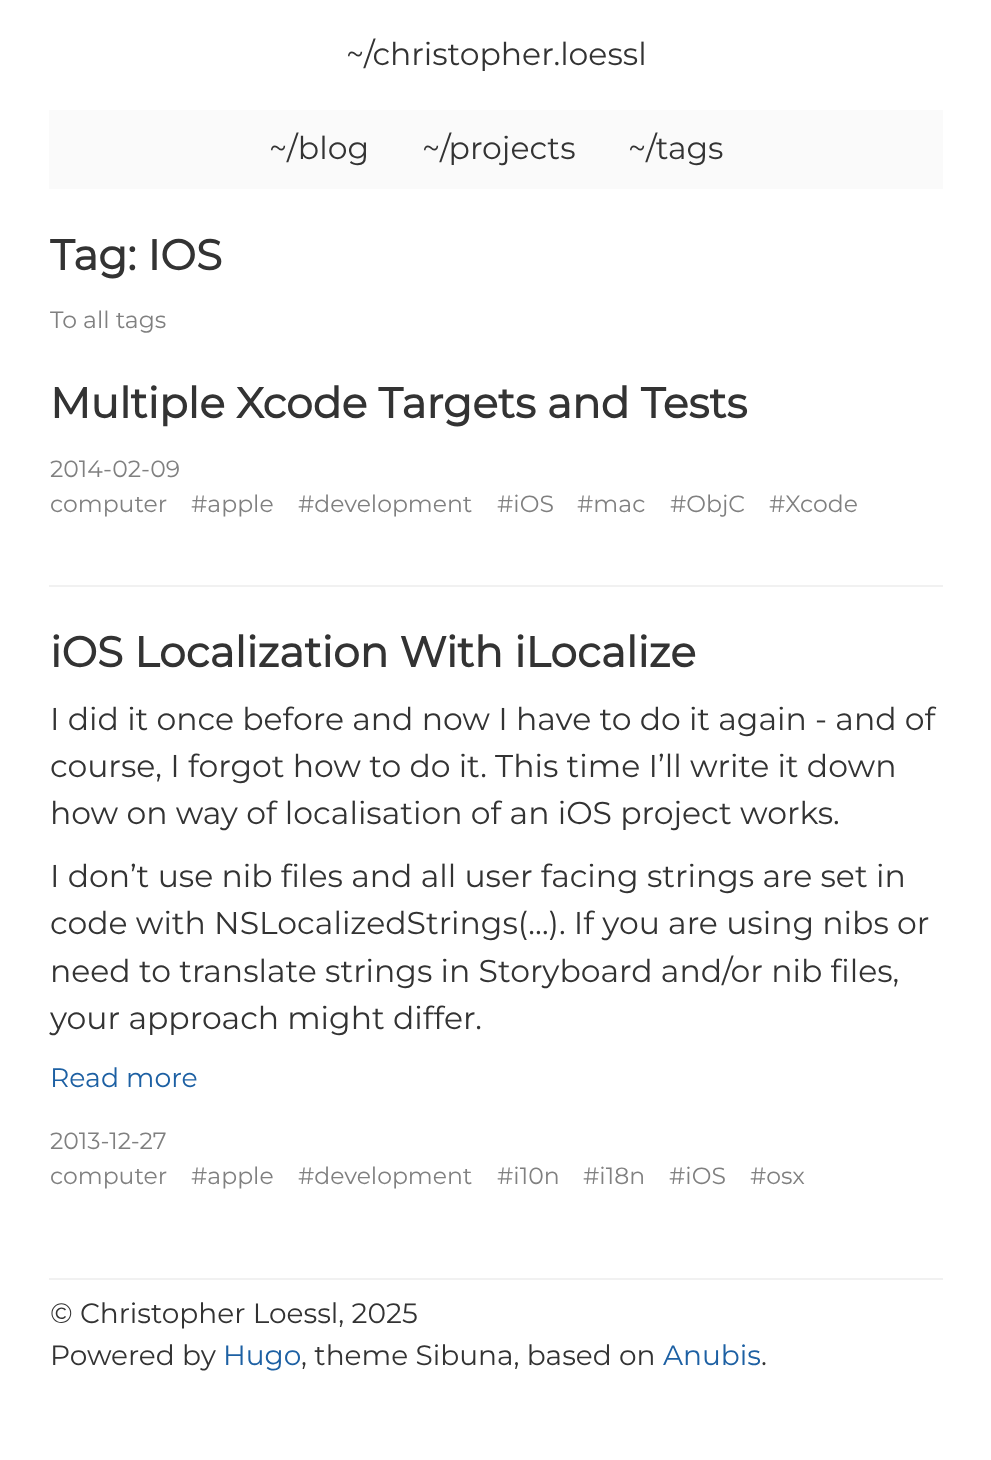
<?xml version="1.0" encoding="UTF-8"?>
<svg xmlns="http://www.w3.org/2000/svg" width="991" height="1460">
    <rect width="100%" height="100%" fill="#FFFFFF"/>
    <text x="346" y="65" font-family="Montserrat" font-size="31.5" font-weight="100" fill="#333333">~/christopher.loessl</text>
    <rect x="49" y="110" width="894" height="79" fill="#FAFAFA"/>
    <text x="269" y="159" font-family="Montserrat" font-size="31.5" font-weight="100" fill="#333333">~/blog</text>
    <text x="422" y="159" font-family="Montserrat" font-size="31.5" font-weight="100" fill="#333333">~/projects</text>
    <text x="628" y="159" font-family="Montserrat" font-size="31.5" font-weight="100" fill="#333333">~/tags</text>
    <text x="50" y="270" font-family="Montserrat" font-size="42.5" font-weight="700" fill="#333333">Tag: IOS</text>
    <text x="50" y="328" font-family="Montserrat" font-size="23.5" font-weight="100" fill="#808080">To all tags</text>
    <rect x="49" y="585" width="894" height="2" fill="#F1F1F1"/>
    <text x="50" y="418" font-family="Montserrat" font-size="42.5" font-weight="700" fill="#333333">Multiple Xcode Targets and Tests</text>
    <text font-family="Montserrat" font-size="23.5" font-weight="100" fill="#808080">
        <tspan x="50" y="477">2014-02-09</tspan>
        <tspan x="50" y="512">computer</tspan>
    </text>
    <text x="191" y="512" font-family="Montserrat" font-size="23.5" font-weight="100" fill="#808080">#apple</text>
    <text x="298" y="512" font-family="Montserrat" font-size="23.5" font-weight="100" fill="#808080">#development</text>
    <text x="497" y="512" font-family="Montserrat" font-size="23.5" font-weight="100" fill="#808080">#iOS</text>
    <text x="577" y="512" font-family="Montserrat" font-size="23.5" font-weight="100" fill="#808080">#mac</text>
    <text x="670" y="512" font-family="Montserrat" font-size="23.5" font-weight="100" fill="#808080">#ObjC</text>
    <text x="769" y="512" font-family="Montserrat" font-size="23.5" font-weight="100" fill="#808080">#Xcode</text>
    <text x="50" y="667" font-family="Montserrat" font-size="42.5" font-weight="700" fill="#333333">iOS Localization With iLocalize</text>
    <text font-family="Montserrat" font-size="31.5" font-weight="100" fill="#333333">
        <tspan x="50" y="730">I did it once before and now I have to do it again - and of</tspan>
        <tspan x="50" y="777">course, I forgot how to do it. This time I’ll write it down</tspan>
        <tspan x="50" y="824">how on way of localisation of an iOS project works.</tspan>
    </text>
    <text font-family="Montserrat" font-size="31.5" font-weight="100" fill="#333333">
        <tspan x="50" y="887">I don’t use nib files and all user facing strings are set in</tspan>
        <tspan x="50" y="934">code with NSLocalizedStrings(…). If you are using nibs or</tspan>
        <tspan x="50" y="982">need to translate strings in Storyboard and/or nib files,</tspan>
        <tspan x="50" y="1029">your approach might differ.</tspan>
    </text>
    <text x="50" y="1087" font-family="Montserrat" font-size="26.75" font-weight="100" fill="#1D60A3">Read more</text>
    <text font-family="Montserrat" font-size="23.5" font-weight="100" fill="#808080">
        <tspan x="50" y="1149">2013-12-27</tspan>
        <tspan x="50" y="1184">computer</tspan>
    </text>
    <text x="191" y="1184" font-family="Montserrat" font-size="23.5" font-weight="100" fill="#808080">#apple</text>
    <text x="298" y="1184" font-family="Montserrat" font-size="23.5" font-weight="100" fill="#808080">#development</text>
    <text x="497" y="1184" font-family="Montserrat" font-size="23.5" font-weight="100" fill="#808080">#i10n</text>
    <text x="583" y="1184" font-family="Montserrat" font-size="23.5" font-weight="100" fill="#808080">#i18n</text>
    <text x="669" y="1184" font-family="Montserrat" font-size="23.5" font-weight="100" fill="#808080">#iOS</text>
    <text x="750" y="1184" font-family="Montserrat" font-size="23.5" font-weight="100" fill="#808080">#osx</text>
    <rect x="49" y="1278" width="894" height="2" fill="#F1F1F1"/>
    <text font-family="Montserrat" font-size="28" font-weight="100" fill="#333333">
        <tspan x="50" y="1323">© Christopher Loessl, 2025</tspan>
        <tspan x="50" y="1365">Powered by</tspan>
    </text>
    <text x="223" y="1365" font-family="Montserrat" font-size="28" font-weight="100" fill="#1D60A3">Hugo</text>
    <text x="301" y="1365" font-family="Montserrat" font-size="28" font-weight="100" fill="#333333">, theme Sibuna, based on</text>
    <text x="663" y="1365" font-family="Montserrat" font-size="28" font-weight="100" fill="#1D60A3">Anubis</text>
    <text x="761" y="1365" font-family="Montserrat" font-size="28" font-weight="100" fill="#333333">.</text>
</svg>
